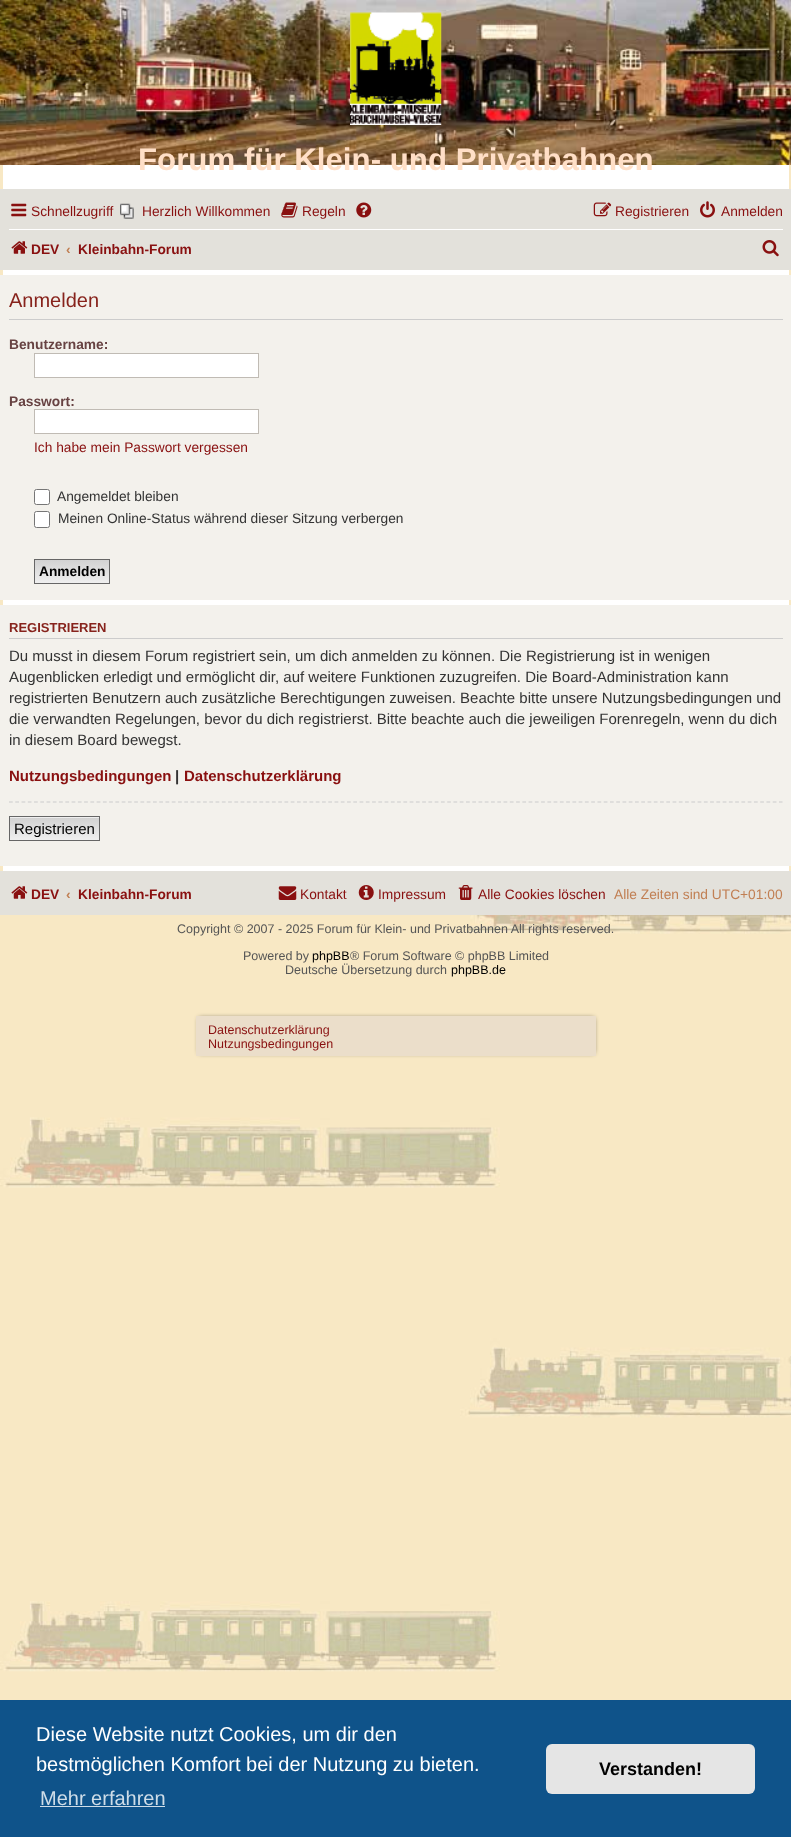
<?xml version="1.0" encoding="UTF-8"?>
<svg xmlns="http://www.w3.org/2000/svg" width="791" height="1837">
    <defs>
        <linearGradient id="g1" gradientUnits="userSpaceOnUse" x1="72" y1="560" x2="72" y2="583"><stop offset="0" stop-color="#D2D2D2"/><stop offset="1" stop-color="#EFEFEF"/></linearGradient>
        <linearGradient id="g2" gradientUnits="userSpaceOnUse" x1="54" y1="818" x2="54" y2="840"><stop offset="0" stop-color="#D2D2D2"/><stop offset="1" stop-color="#EFEFEF"/></linearGradient>
        <filter id="blur1" x="-50%" y="-200%" width="200%" height="500%"><feGaussianBlur stdDeviation="2.5"/></filter>
    </defs>
    <rect width="100%" height="100%" fill="#FFFFFF"/>
    <image x="0" y="1076" width="791" height="624" href="img_01.png"/>
    <image x="0" y="165" width="791" height="911" href="img_02.png"/>
    <rect x="3" y="165" width="786" height="706" fill="#FFFFFF"/>
    <image x="0" y="0" width="791" height="165" href="img_03.png"/>
    <image x="350" y="12" width="92" height="113" href="img_04.png"/>
    <text x="138" y="170" font-family="Liberation Sans" font-size="31.25" font-weight="700" fill="#FFDFC7">Forum für Klein- und Privatbahnen</text>
    <rect x="0" y="189" width="791" height="81" fill="#E3E1DB"/>
    <image x="11" y="203" width="16" height="14" href="img_05.png"/>
    <text x="31" y="216" font-family="Liberation Sans" font-size="13.75" fill="#891010">Schnellzugriff</text>
    <image x="120" y="203" width="14" height="16" href="img_06.png"/>
    <text x="142" y="216" font-family="Liberation Sans" font-size="13.75" fill="#891010">Herzlich Willkommen</text>
    <image x="281" y="202" width="17" height="16" href="img_07.png"/>
    <text x="302" y="216" font-family="Liberation Sans" font-size="13.75" fill="#891010">Regeln</text>
    <image x="356" y="202" width="16" height="16" href="img_08.png"/>
    <image x="593" y="202" width="19" height="15" href="img_09.png"/>
    <text x="615" y="216" font-family="Liberation Sans" font-size="13.75" fill="#891010">Registrieren</text>
    <image x="700" y="201" width="15" height="17" href="img_10.png"/>
    <text x="721" y="216" font-family="Liberation Sans" font-size="13.75" fill="#891010">Anmelden</text>
    <rect x="9" y="229" width="774" height="1" fill="#FFFFFF"/>
    <image x="11" y="241" width="17" height="13" href="img_11.png"/>
    <text x="31" y="254" font-family="Liberation Sans" font-size="13.75" font-weight="700" fill="#891010">DEV</text>
    <text x="66" y="254" font-family="Liberation Sans" font-size="13.75" font-weight="700" fill="#C17F53">‹</text>
    <text x="78" y="254" font-family="Liberation Sans" font-size="13.75" font-weight="700" fill="#891010">Kleinbahn-Forum</text>
    <image x="762" y="240" width="17" height="17" href="img_12.png"/>
    <rect x="0" y="275" width="791" height="325" fill="#F3F1EC"/>
    <rect x="9" y="319" width="774" height="1" fill="#CCCCCC"/>
    <text x="9" y="307" font-family="Liberation Sans" font-size="20" fill="#87231C">Anmelden</text>
    <text x="9" y="349" font-family="Liberation Sans" font-size="13.75" font-weight="700" fill="#674242">Benutzername:</text>
    <rect x="34.5" y="353.5" width="224" height="24" fill="#FFFFFF" stroke="#C0BBB4"/>
    <text x="9" y="406" font-family="Liberation Sans" font-size="13.75" font-weight="700" fill="#674242">Passwort:</text>
    <rect x="34.5" y="409.5" width="224" height="24" fill="#FFFFFF" stroke="#C0BBB4"/>
    <text x="34" y="452" font-family="Liberation Sans" font-size="13.75" fill="#891010">Ich habe mein Passwort vergessen</text>
    <rect x="34.5" y="489.5" width="15" height="15" rx="2" fill="#FFFFFF" stroke="#767676"/>
    <text x="57" y="501" font-family="Liberation Sans" font-size="13.75" fill="#333333">Angemeldet bleiben</text>
    <rect x="34.5" y="511.5" width="15" height="16" rx="2" fill="#FFFFFF" stroke="#767676"/>
    <text x="58" y="523" font-family="Liberation Sans" font-size="13.75" fill="#333333">Meinen Online-Status während dieser Sitzung verbergen</text>
    <rect x="35" y="560" width="74" height="23" fill="url(#g1)"/>
    <rect x="34.5" y="559.5" width="75" height="24" fill="none" stroke="#666666"/>
    <text x="39" y="576" font-family="Liberation Sans" font-size="13.75" font-weight="700" fill="#000000">Anmelden</text>
    <rect x="0" y="605" width="791" height="261" fill="#F3F1EC"/>
    <rect x="9" y="638" width="774" height="1" fill="#CCCCCC"/>
    <text x="9" y="632" font-family="Liberation Sans" font-size="13" font-weight="700" fill="#87231C">REGISTRIEREN</text>
    <text font-family="Liberation Sans" font-size="15" fill="#333333">
        <tspan x="9" y="661">Du musst in diesem Forum registriert sein, um dich anmelden zu können. Die Registrierung ist in wenigen</tspan>
        <tspan x="9" y="682">Augenblicken erledigt und ermöglicht dir, auf weitere Funktionen zuzugreifen. Die Board-Administration kann</tspan>
        <tspan x="9" y="703">registrierten Benutzern auch zusätzliche Berechtigungen zuweisen. Beachte bitte unsere Nutzungsbedingungen und</tspan>
        <tspan x="9" y="724">die verwandten Regelungen, bevor du dich registrierst. Bitte beachte auch die jeweiligen Forenregeln, wenn du dich</tspan>
        <tspan x="9" y="745">in diesem Board bewegst.</tspan>
    </text>
    <text x="9" y="781" font-family="Liberation Sans" font-size="15" font-weight="700" fill="#891010">Nutzungsbedingungen</text>
    <text x="175" y="781" font-family="Liberation Sans" font-size="15" font-weight="700" fill="#333333">|</text>
    <text x="184" y="781" font-family="Liberation Sans" font-size="15" font-weight="700" fill="#891010">Datenschutzerklärung</text>
    <path d="M 9 802 H 782.5" fill="none" stroke="#CCCCCC" stroke-width="1.2" stroke-dasharray="3.75 2.51"/>
    <rect x="10" y="817" width="89" height="1" fill="#EFEFEF"/>
    <rect x="10" y="818" width="89" height="22" fill="url(#g2)"/>
    <rect x="9.5" y="816.5" width="90" height="24" fill="none" stroke="#666666"/>
    <text x="14" y="834" font-family="Liberation Sans" font-size="15" fill="#000000">Registrieren</text>
    <rect x="0" y="871" width="791" height="44" fill="#E3E1DB"/>
    <image x="11" y="886" width="17" height="13" href="img_11.png"/>
    <text x="31" y="899" font-family="Liberation Sans" font-size="13.75" font-weight="700" fill="#891010">DEV</text>
    <text x="66" y="899" font-family="Liberation Sans" font-size="13.75" font-weight="700" fill="#C17F53">‹</text>
    <text x="78" y="899" font-family="Liberation Sans" font-size="13.75" font-weight="700" fill="#891010">Kleinbahn-Forum</text>
    <image x="278" y="886" width="19" height="14" href="img_13.png"/>
    <text x="300" y="899" font-family="Liberation Sans" font-size="13.75" fill="#891010">Kontakt</text>
    <image x="358" y="885" width="16" height="15" href="img_14.png"/>
    <text x="378" y="899" font-family="Liberation Sans" font-size="13.75" fill="#891010">Impressum</text>
    <image x="458" y="885" width="15" height="15" href="img_15.png"/>
    <text x="478" y="899" font-family="Liberation Sans" font-size="13.75" fill="#891010">Alle Cookies löschen</text>
    <text x="614" y="899" font-family="Liberation Sans" font-size="13.75" fill="#C17F53">Alle Zeiten sind UTC+01:00</text>
    <text x="177" y="933" font-family="Liberation Sans" font-size="12.5" fill="#555555">Copyright © 2007 - 2025 Forum für Klein- und Privatbahnen All rights reserved.</text>
    <text x="243" y="960" font-family="Liberation Sans" font-size="12.5" fill="#555555">Powered by</text>
    <text x="312" y="960" font-family="Liberation Sans" font-size="12.5" fill="#000000">phpBB</text>
    <text x="350" y="960" font-family="Liberation Sans" font-size="12.5" fill="#555555">® Forum Software © phpBB Limited</text>
    <text x="285" y="974" font-family="Liberation Sans" font-size="12.5" fill="#555555">Deutsche Übersetzung durch</text>
    <text x="451" y="974" font-family="Liberation Sans" font-size="12.5" fill="#000000">phpBB.de</text>
    <rect x="199" y="1018" width="395" height="35" fill="#020202" fill-opacity="0.7" filter="url(#blur1)"/>
    <rect x="196" y="1016" width="400" height="40" fill="#EBDECA"/>
    <text font-family="Liberation Sans" font-size="12.5" fill="#891010">
        <tspan x="208" y="1034">Datenschutzerklärung</tspan>
        <tspan x="208" y="1048">Nutzungsbedingungen</tspan>
    </text>
    <rect x="0" y="1700" width="791" height="137" fill="#0F538A"/>
    <text font-family="Liberation Sans" font-size="20" fill="#FFFFFF">
        <tspan x="36" y="1741">Diese Website nutzt Cookies, um dir den</tspan>
        <tspan x="36" y="1771">bestmöglichen Komfort bei der Nutzung zu bieten.</tspan>
    </text>
    <text x="40" y="1805" font-family="Liberation Sans" font-size="20" fill="#CFDDE8">Mehr erfahren</text>
    <rect x="40" y="1806" width="125" height="1" fill="#CFDDE8"/>
    <rect x="546" y="1744" width="209" height="50" rx="6" fill="#E5E5E5"/>
    <text x="599" y="1775" font-family="Liberation Sans" font-size="18" font-weight="700" fill="#000000">Verstanden!</text>
</svg>
